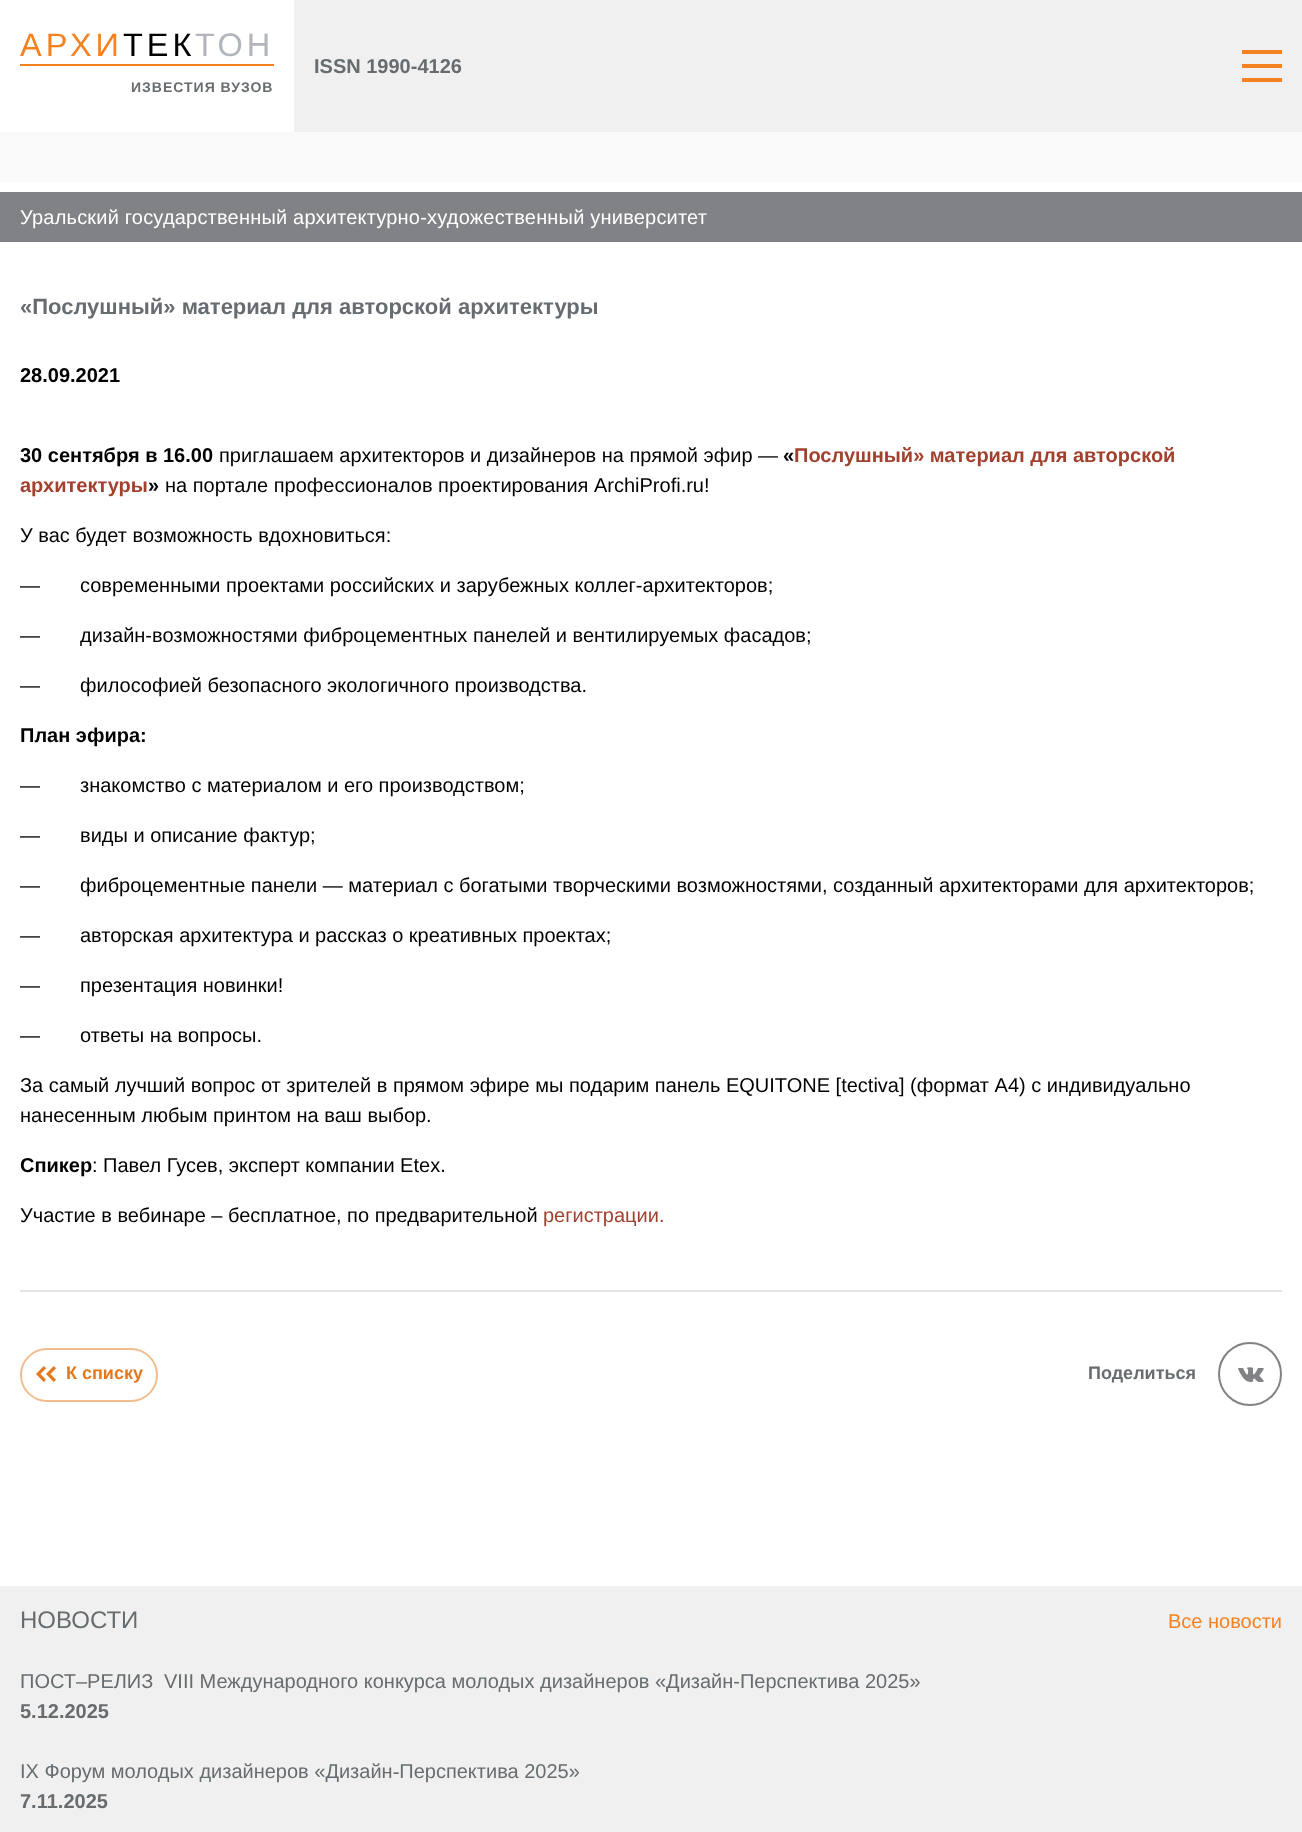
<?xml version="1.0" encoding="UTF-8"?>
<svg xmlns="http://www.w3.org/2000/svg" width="1302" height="1832">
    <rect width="100%" height="100%" fill="#F9F9F9"/>
    <rect x="0" y="182" width="1302" height="1404" fill="#FFFFFF"/>
    <rect x="294" y="0" width="1008" height="132" fill="#F0F0F0"/>
    <rect x="0" y="0" width="294" height="132" fill="#FFFFFF"/>
    <rect x="20" y="64" width="254" height="2" fill="#F58220"/>
    <text x="20" y="56" font-family="Liberation Sans" font-size="32.5" letter-spacing="4" fill="#F58220">АРХИ</text>
    <text x="123" y="56" font-family="Liberation Sans" font-size="32.5" letter-spacing="4" fill="#000000">ТЕК</text>
    <text x="195" y="56" font-family="Liberation Sans" font-size="32.5" letter-spacing="4" fill="#B1B5BC">ТОН</text>
    <text x="131" y="92" font-family="Liberation Sans" font-size="14" font-weight="700" letter-spacing="1" fill="#666C6F">ИЗВЕСТИЯ ВУЗОВ</text>
    <text x="314" y="73" font-family="Liberation Sans" font-size="20" font-weight="700" fill="#666C6F">ISSN 1990-4126</text>
    <rect x="1242" y="50" width="40" height="4" fill="#F58220"/>
    <rect x="1242" y="64" width="40" height="4" fill="#F58220"/>
    <rect x="1242" y="78" width="40" height="4" fill="#F58220"/>
    <rect x="0" y="192" width="1302" height="50" fill="#808285"/>
    <text x="20" y="224" font-family="Liberation Sans" font-size="20" letter-spacing="0.2" fill="#FFFFFF">Уральский государственный архитектурно-художественный университет</text>
    <text x="20" y="314" font-family="Liberation Sans" font-size="22" font-weight="700" fill="#666C6F">«Послушный» материал для авторской архитектуры</text>
    <text x="20" y="382" font-family="Liberation Sans" font-size="20" font-weight="700" fill="#000000">28.09.2021</text>
    <text x="20" y="462" font-family="Liberation Sans" font-size="20" font-weight="700" fill="#000000">30 сентября в 16.00</text>
    <text x="219" y="462" font-family="Liberation Sans" font-size="20" fill="#000000">приглашаем архитекторов и дизайнеров на прямой эфир —</text>
    <text x="783" y="462" font-family="Liberation Sans" font-size="20" font-weight="700" fill="#000000">«</text>
    <text x="794" y="462" font-family="Liberation Sans" font-size="20" font-weight="700" fill="#A1402D">Послушный» материал для авторской</text>
    <text x="20" y="492" font-family="Liberation Sans" font-size="20" font-weight="700" fill="#A1402D">архитектуры</text>
    <text x="148" y="492" font-family="Liberation Sans" font-size="20" font-weight="700" fill="#000000">»</text>
    <text x="165" y="492" font-family="Liberation Sans" font-size="20" fill="#000000">на портале профессионалов проектирования ArchiProfi.ru!</text>
    <text x="20" y="542" font-family="Liberation Sans" font-size="20" fill="#000000">У вас будет возможность вдохновиться:</text>
    <text x="20" y="592" font-family="Liberation Sans" font-size="20" fill="#000000">—</text>
    <text x="80" y="592" font-family="Liberation Sans" font-size="20" fill="#000000">современными проектами российских и зарубежных коллег-архитекторов;</text>
    <text x="20" y="642" font-family="Liberation Sans" font-size="20" fill="#000000">—</text>
    <text x="80" y="642" font-family="Liberation Sans" font-size="20" fill="#000000">дизайн-возможностями фиброцементных панелей и вентилируемых фасадов;</text>
    <text x="20" y="692" font-family="Liberation Sans" font-size="20" fill="#000000">—</text>
    <text x="80" y="692" font-family="Liberation Sans" font-size="20" fill="#000000">философией безопасного экологичного производства.</text>
    <text x="20" y="742" font-family="Liberation Sans" font-size="20" font-weight="700" fill="#000000">План эфира:</text>
    <text x="20" y="792" font-family="Liberation Sans" font-size="20" fill="#000000">—</text>
    <text x="80" y="792" font-family="Liberation Sans" font-size="20" fill="#000000">знакомство с материалом и его производством;</text>
    <text x="20" y="842" font-family="Liberation Sans" font-size="20" fill="#000000">—</text>
    <text x="80" y="842" font-family="Liberation Sans" font-size="20" fill="#000000">виды и описание фактур;</text>
    <text x="20" y="892" font-family="Liberation Sans" font-size="20" fill="#000000">—</text>
    <text x="80" y="892" font-family="Liberation Sans" font-size="20" fill="#000000">фиброцементные панели — материал с богатыми творческими возможностями, созданный архитекторами для архитекторов;</text>
    <text x="20" y="942" font-family="Liberation Sans" font-size="20" fill="#000000">—</text>
    <text x="80" y="942" font-family="Liberation Sans" font-size="20" fill="#000000">авторская архитектура и рассказ о креативных проектах;</text>
    <text x="20" y="992" font-family="Liberation Sans" font-size="20" fill="#000000">—</text>
    <text x="80" y="992" font-family="Liberation Sans" font-size="20" fill="#000000">презентация новинки!</text>
    <text x="20" y="1042" font-family="Liberation Sans" font-size="20" fill="#000000">—</text>
    <text x="80" y="1042" font-family="Liberation Sans" font-size="20" fill="#000000">ответы на вопросы.</text>
    <text font-family="Liberation Sans" font-size="20" fill="#000000">
        <tspan x="20" y="1092">За самый лучший вопрос от зрителей в прямом эфире мы подарим панель EQUITONE [tectiva] (формат А4) с индивидуально</tspan>
        <tspan x="20" y="1122">нанесенным любым принтом на ваш выбор.</tspan>
    </text>
    <text x="20" y="1172" font-family="Liberation Sans" font-size="20" font-weight="700" fill="#000000">Спикер</text>
    <text x="92" y="1172" font-family="Liberation Sans" font-size="20" fill="#000000">: Павел Гусев, эксперт компании Etex.</text>
    <text x="20" y="1222" font-family="Liberation Sans" font-size="20" fill="#000000">Участие в вебинаре – бесплатное, по предварительной</text>
    <text x="543" y="1222" font-family="Liberation Sans" font-size="20" fill="#A1402D">регистрации.</text>
    <rect x="20" y="1290" width="1262" height="2" fill="#E5E5E5"/>
    <rect x="21" y="1349" width="136" height="52" rx="26" fill="none" stroke="#F1BD8F" stroke-width="2"/>
    <image x="36" y="1366" width="20" height="16" href="img_01.png"/>
    <text x="66" y="1379" font-family="Liberation Sans" font-size="18" font-weight="700" fill="#E3791E">К списку</text>
    <text x="1088" y="1379" font-family="Liberation Sans" font-size="18" font-weight="700" fill="#666C6F">Поделиться</text>
    <circle cx="1250" cy="1374" r="31" fill="none" stroke="#808285" stroke-width="2"/>
    <image x="1238" y="1367" width="26" height="15" href="img_02.png"/>
    <rect x="0" y="1586" width="1302" height="246" fill="#F0F0F0"/>
    <text x="20" y="1628" font-family="Liberation Sans" font-size="24" fill="#666C6F">НОВОСТИ</text>
    <text x="1168" y="1628" font-family="Liberation Sans" font-size="20" fill="#F58220">Все новости</text>
    <text x="20" y="1688" font-family="Liberation Sans" font-size="20" fill="#666C6F">ПОСТ–РЕЛИЗ</text>
    <text x="164" y="1688" font-family="Liberation Sans" font-size="20" fill="#666C6F">VIII Международного конкурса молодых дизайнеров «Дизайн-Перспектива 2025»</text>
    <text x="20" y="1718" font-family="Liberation Sans" font-size="20" font-weight="700" fill="#666C6F">5.12.2025</text>
    <text x="20" y="1778" font-family="Liberation Sans" font-size="20" fill="#666C6F">IX Форум молодых дизайнеров «Дизайн‑Перспектива 2025»</text>
    <text x="20" y="1808" font-family="Liberation Sans" font-size="20" font-weight="700" fill="#666C6F">7.11.2025</text>
</svg>
